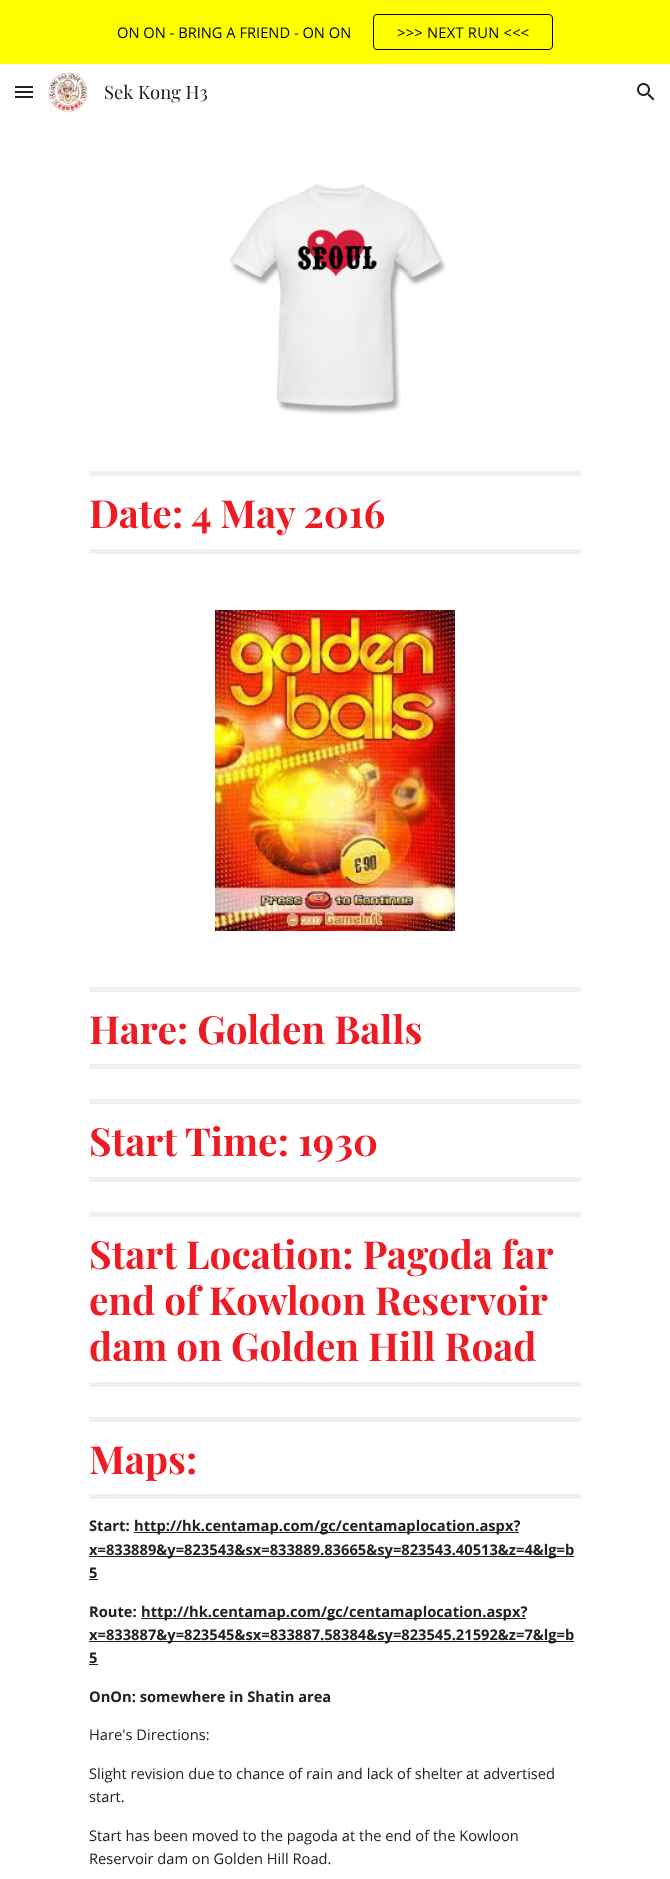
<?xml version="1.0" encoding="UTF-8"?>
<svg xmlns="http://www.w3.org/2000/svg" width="670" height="1879">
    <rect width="100%" height="100%" fill="#FFFFFF"/>
    <rect x="0" y="0" width="670" height="64" fill="#FFFF00"/>
    <text x="117" y="38" font-family="Open Sans" font-size="14.7" fill="#000000">ON ON - BRING A FRIEND - ON ON</text>
    <rect x="373.5" y="14.5" width="179" height="35" rx="3.5" fill="none" stroke="#000000"/>
    <text x="397" y="38" font-family="Open Sans" font-size="14.7" letter-spacing="0.25" fill="#000000">&gt;&gt;&gt; NEXT RUN &lt;&lt;&lt;</text>
    <rect x="15" y="86" width="18" height="2" fill="#212121"/>
    <rect x="15" y="91" width="18" height="2" fill="#212121"/>
    <rect x="15" y="96" width="18" height="2" fill="#212121"/>
    <image x="48" y="72" width="40" height="40" href="img_01.png"/>
    <text x="104" y="99" font-family="Playfair Display" font-size="18.5" fill="#212121">Sek Kong H3</text>
    <image x="637" y="83" width="18" height="18" href="img_02.png"/>
    <image x="229" y="184" width="217" height="231" href="img_03.png"/>
    <rect x="89" y="471" width="492" height="5" fill="#F0F0F0"/>
    <rect x="89" y="549" width="492" height="5" fill="#F0F0F0"/>
    <text x="89" y="528" font-family="Playfair Display" font-size="38.75" font-weight="700" fill="#ED1C24">Date: 4 May 2016</text>
    <image x="215" y="610" width="240" height="321" href="img_04.png"/>
    <rect x="89" y="987" width="492" height="5" fill="#F0F0F0"/>
    <rect x="89" y="1064" width="492" height="5" fill="#F0F0F0"/>
    <text x="89" y="1044" font-family="Playfair Display" font-size="38.75" font-weight="700" fill="#ED1C24">Hare: Golden Balls</text>
    <rect x="89" y="1099" width="492" height="5" fill="#F0F0F0"/>
    <rect x="89" y="1177" width="492" height="5" fill="#F0F0F0"/>
    <text x="89" y="1156" font-family="Playfair Display" font-size="38.75" font-weight="700" fill="#ED1C24">Start Time: 1930</text>
    <rect x="89" y="1212" width="492" height="5" fill="#F0F0F0"/>
    <rect x="89" y="1382" width="492" height="5" fill="#F0F0F0"/>
    <text font-family="Playfair Display" font-size="38.75" font-weight="700" fill="#ED1C24">
        <tspan x="89" y="1269">Start Location: Pagoda far</tspan>
        <tspan x="89" y="1315">end of Kowloon Reservoir</tspan>
        <tspan x="89" y="1361">dam on Golden Hill Road</tspan>
    </text>
    <rect x="89" y="1417" width="492" height="5" fill="#F0F0F0"/>
    <rect x="89" y="1494" width="492" height="5" fill="#F0F0F0"/>
    <text x="89" y="1474" font-family="Playfair Display" font-size="38.75" font-weight="700" fill="#ED1C24">Maps:</text>
    <text x="89" y="1531" font-family="Open Sans" font-size="14.7" font-weight="700" fill="#212121">Start:</text>
    <rect x="134" y="1532" width="385" height="1" fill="#212121"/>
    <text x="134" y="1531" font-family="Open Sans" font-size="14.7" font-weight="700" fill="#212121">http://hk.centamap.com/gc/centamaplocation.aspx?</text>
    <rect x="89" y="1556" width="485" height="1" fill="#212121"/>
    <text font-family="Open Sans" font-size="14.7" font-weight="700" fill="#212121">
        <tspan x="89" y="1555">x=833889&amp;y=823543&amp;sx=833889.83665&amp;sy=823543.40513&amp;z=4&amp;lg=b</tspan>
        <tspan x="89" y="1578">5</tspan>
    </text>
    <rect x="89" y="1579" width="9" height="1" fill="#212121"/>
    <text x="89" y="1617" font-family="Open Sans" font-size="14.7" font-weight="700" fill="#212121">Route:</text>
    <rect x="141" y="1618" width="385" height="1" fill="#212121"/>
    <text x="141" y="1617" font-family="Open Sans" font-size="14.7" font-weight="700" fill="#212121">http://hk.centamap.com/gc/centamaplocation.aspx?</text>
    <rect x="89" y="1641" width="485" height="1" fill="#212121"/>
    <text font-family="Open Sans" font-size="14.7" font-weight="700" fill="#212121">
        <tspan x="89" y="1640">x=833887&amp;y=823545&amp;sx=833887.58384&amp;sy=823545.21592&amp;z=7&amp;lg=b</tspan>
        <tspan x="89" y="1663">5</tspan>
    </text>
    <rect x="89" y="1664" width="9" height="1" fill="#212121"/>
    <text x="89" y="1702" font-family="Open Sans" font-size="14.7" font-weight="700" fill="#212121">OnOn: somewhere in Shatin area</text>
    <text x="89" y="1740" font-family="Open Sans" font-size="14.7" fill="#212121">Hare's Directions:</text>
    <text font-family="Open Sans" font-size="14.7" fill="#212121">
        <tspan x="89" y="1779">Slight revision due to chance of rain and lack of shelter at advertised</tspan>
        <tspan x="89" y="1802">start.</tspan>
    </text>
    <text font-family="Open Sans" font-size="14.7" fill="#212121">
        <tspan x="89" y="1841">Start has been moved to the pagoda at the end of the Kowloon</tspan>
        <tspan x="89" y="1864">Reservoir dam on Golden Hill Road.</tspan>
    </text>
</svg>
